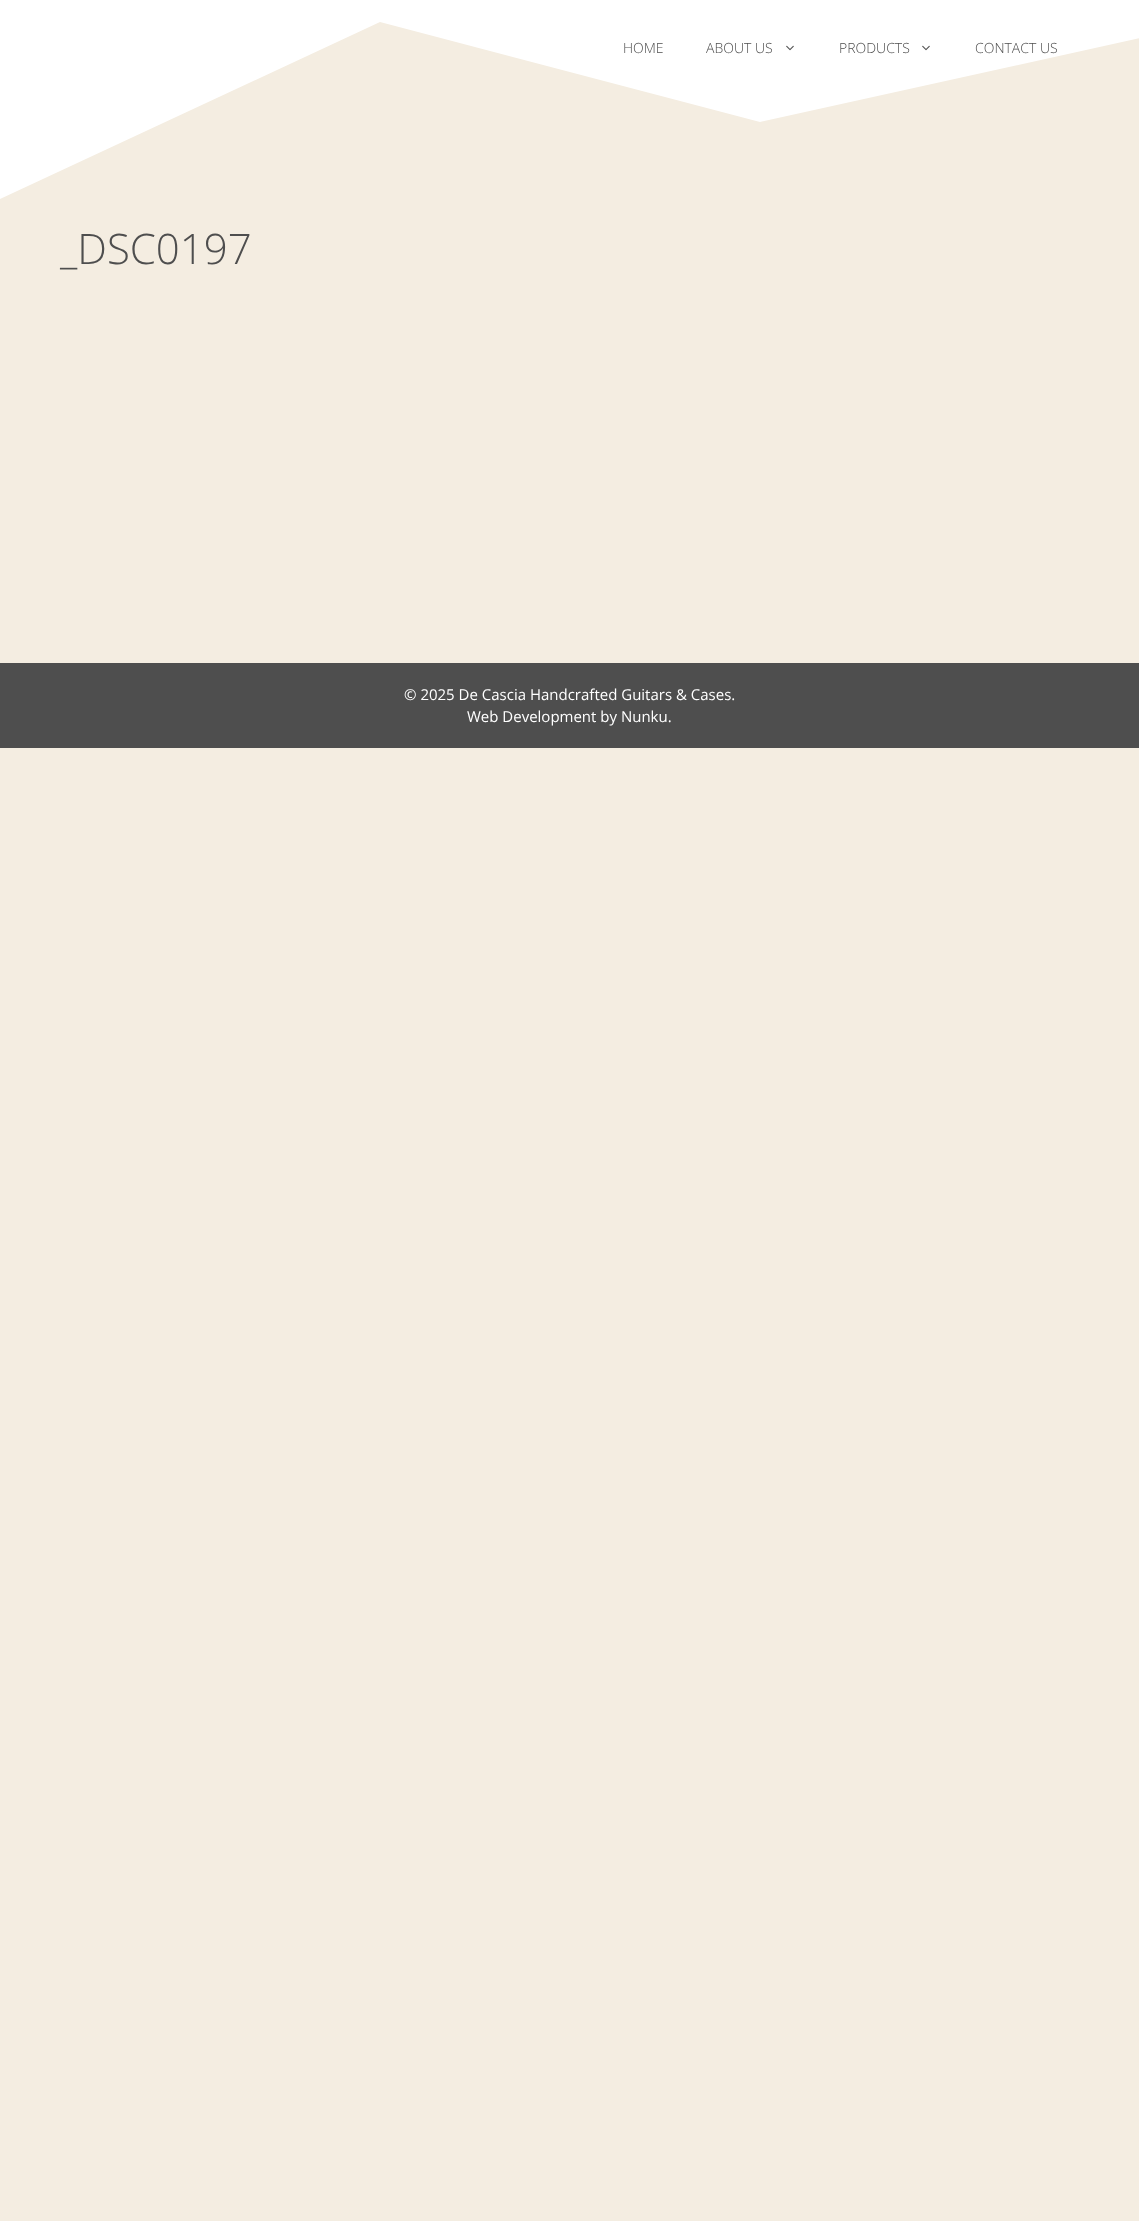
<?xml version="1.0" encoding="UTF-8"?>
<svg xmlns="http://www.w3.org/2000/svg" width="1139" height="2221">
    <rect width="100%" height="100%" fill="#F4EDE1"/>
    <path d="M 0 199 L 380 22 L 760 122 L 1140 38 V -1 H 0 Z" fill="#FFFFFF"/>
    <text x="623" y="53" font-family="Open Sans" font-size="14" font-weight="300" fill="#4E4E4E">HOME</text>
    <text x="706" y="53" font-family="Open Sans" font-size="14" font-weight="300" fill="#4E4E4E">ABOUT US</text>
    <image x="786" y="45" width="8" height="6" href="img_01.png"/>
    <text x="839" y="53" font-family="Open Sans" font-size="14" font-weight="300" fill="#4E4E4E">PRODUCTS</text>
    <image x="922" y="45" width="8" height="6" href="img_01.png"/>
    <text x="975" y="53" font-family="Open Sans" font-size="14" font-weight="300" fill="#4E4E4E">CONTACT US</text>
    <text x="60" y="264" font-family="Open Sans" font-size="42" font-weight="300" fill="#4E4E4E">_DSC0197</text>
    <rect x="0" y="663" width="1139" height="85" fill="#4E4E4E"/>
    <text x="404" y="700" font-family="Open Sans" font-size="15" fill="#FFFFFF">© 2025 De Cascia Handcrafted Guitars &amp; Cases.</text>
    <text x="467" y="722" font-family="Open Sans" font-size="15" fill="#FFFFFF">Web Development by Nunku.</text>
</svg>
